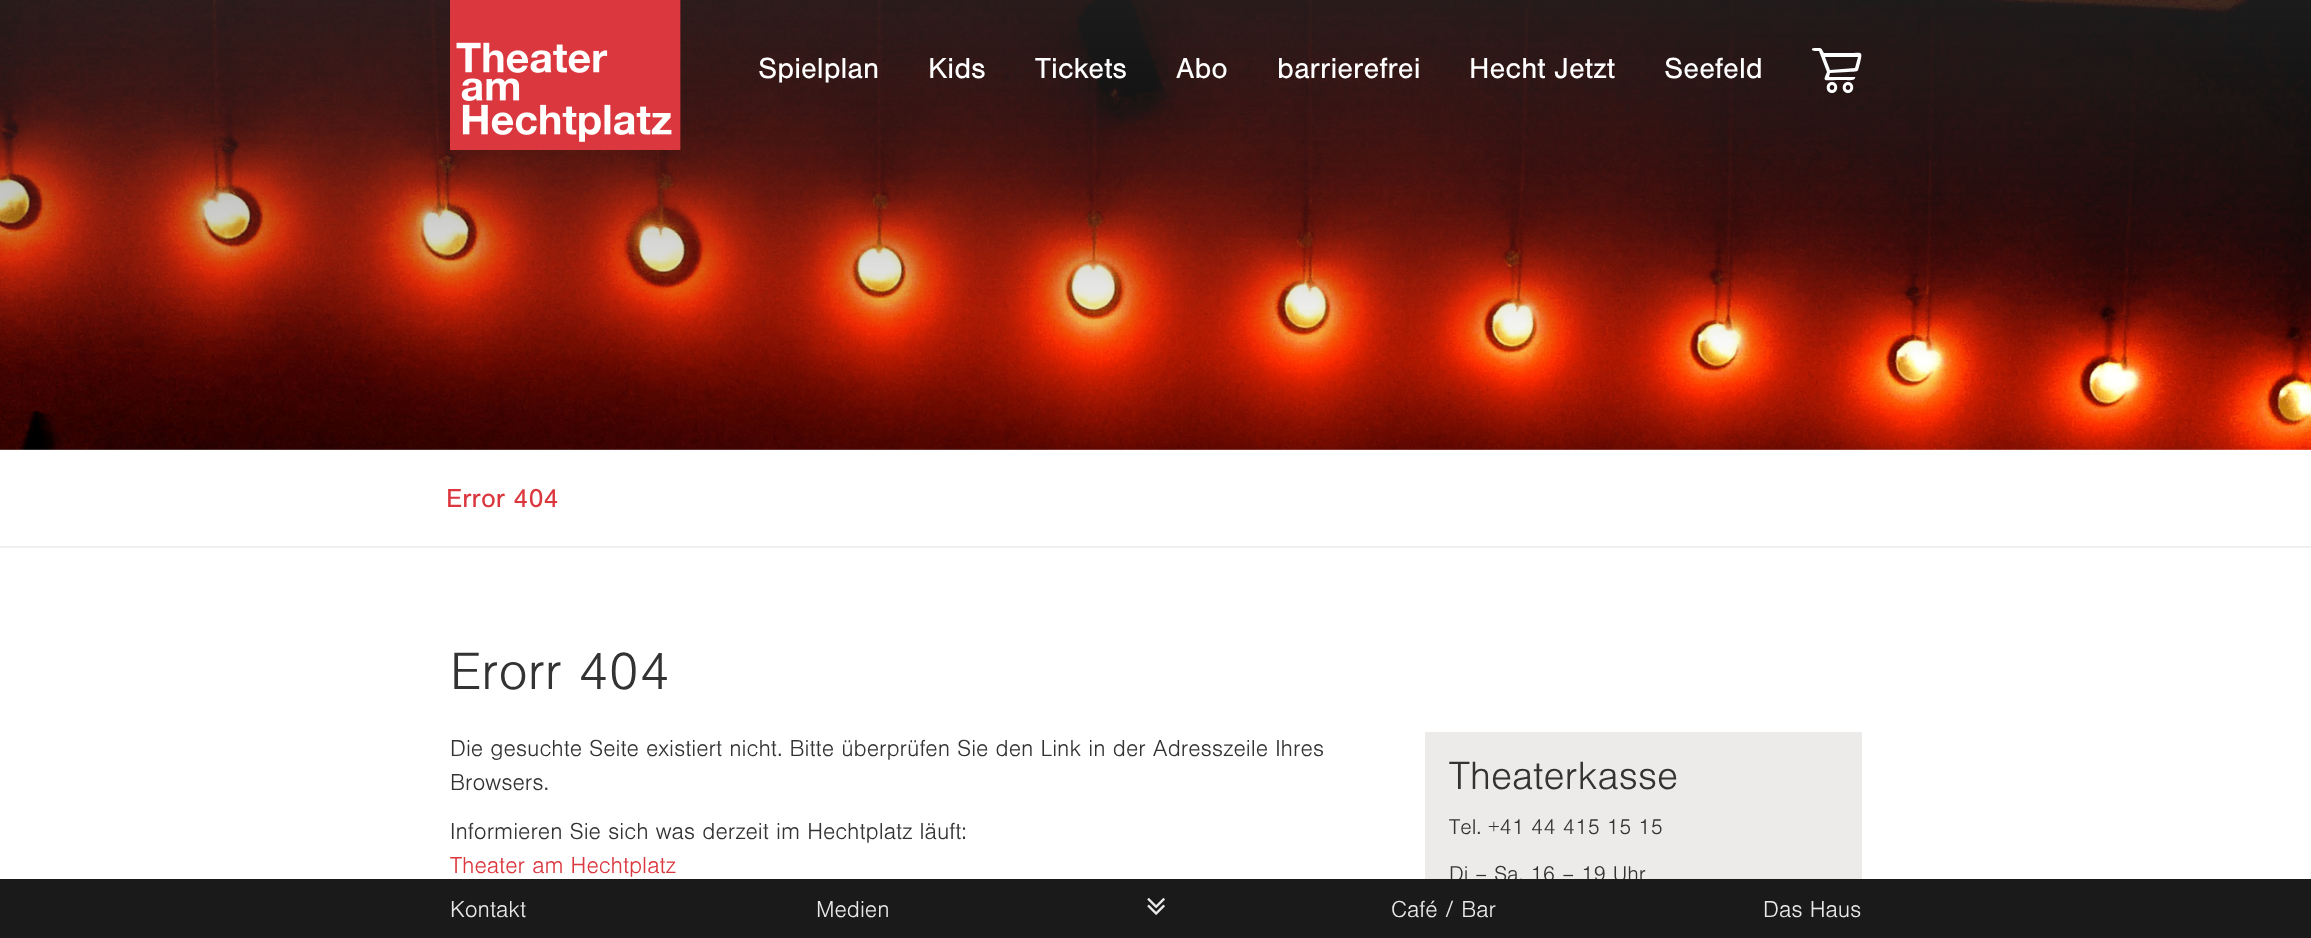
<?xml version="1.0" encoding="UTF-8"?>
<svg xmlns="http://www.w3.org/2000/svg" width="2311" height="938">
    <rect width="100%" height="100%" fill="#FFFFFF"/>
    <image x="0" y="0" width="2311" height="450" href="img_01.png"/>
    <image x="450" y="0" width="231" height="150" href="img_02.png"/>
    <text x="758" y="78" font-family="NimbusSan" font-size="30" fill="#FFFFFF">Spielplan</text>
    <text x="928" y="78" font-family="NimbusSan" font-size="30" fill="#FFFFFF">Kids</text>
    <text x="1035" y="78" font-family="NimbusSan" font-size="30" fill="#FFFFFF">Tickets</text>
    <text x="1176" y="78" font-family="NimbusSan" font-size="30" fill="#FFFFFF">Abo</text>
    <text x="1277" y="78" font-family="NimbusSan" font-size="30" fill="#FFFFFF">barrierefrei</text>
    <text x="1469" y="78" font-family="NimbusSan" font-size="30" fill="#FFFFFF">Hecht Jetzt</text>
    <text x="1664" y="78" font-family="NimbusSan" font-size="30" fill="#FFFFFF">Seefeld</text>
    <path d="M 1814 48 C 1811 48 1811 51 1815 51 H 1819 L 1827 72 C 1822 83 1824 80 1840 80 H 1845 C 1846 80 1855 81 1855 78 C 1856 77 1855 77 1854 77 H 1829 L 1830 73 L 1848 72 C 1860 71 1857 73 1860 63 C 1863 50 1862 53 1848 53 H 1824 C 1823 52 1822 48 1820 48 Z M 1825 57 H 1858 L 1855 68 L 1830 70 Z M 1832 82 C 1825 82 1825 93 1832 93 C 1839 93 1839 82 1832 82 Z M 1848 82 C 1841 82 1841 93 1848 93 C 1855 93 1855 82 1848 82 Z M 1832 85 C 1835 85 1835 90 1832 90 C 1829 90 1829 85 1832 85 Z M 1848 85 C 1851 85 1851 90 1848 90 C 1845 90 1845 85 1848 85 Z" fill="#FFFFFF" fill-rule="evenodd"/>
    <rect x="0" y="546" width="2311" height="2" fill="#EFEFEF"/>
    <text x="446" y="507" font-family="NimbusSan" font-size="27" fill="#DB373E">Error 404</text>
    <text x="450" y="689" font-family="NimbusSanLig" font-size="54.5" fill="#333333">Erorr 404</text>
    <text font-family="NimbusSanLig" font-size="23.95" fill="#333333">
        <tspan x="450" y="756">Die gesuchte Seite existiert nicht. Bitte überprüfen Sie den Link in der Adresszeile Ihres</tspan>
        <tspan x="450" y="790">Browsers.</tspan>
    </text>
    <text x="450" y="839" font-family="NimbusSanLig" font-size="23.95" fill="#333333">Informieren Sie sich was derzeit im Hechtplatz läuft:</text>
    <text x="450" y="873" font-family="NimbusSanLig" font-size="23.95" fill="#DB373E">Theater am Hechtplatz</text>
    <rect x="1425" y="732" width="437" height="147" fill="#ECEBE9"/>
    <text x="1449" y="789" font-family="NimbusSanLig" font-size="41" fill="#333333">Theaterkasse</text>
    <text x="1449" y="834" font-family="NimbusSanLig" font-size="22.25" fill="#333333">Tel. +41 44 415 15 15</text>
    <text x="1449" y="881" font-family="NimbusSanLig" font-size="22.25" fill="#333333">Di – Sa, 16 – 19 Uhr</text>
    <rect x="0" y="879" width="2311" height="59" fill="#1A1A1A"/>
    <image x="1147" y="898" width="18" height="17" href="img_03.png"/>
    <text x="450" y="917" font-family="NimbusSanLig" font-size="23.95" fill="#E9E9E9">Kontakt</text>
    <text x="816" y="917" font-family="NimbusSanLig" font-size="23.95" fill="#E9E9E9">Medien</text>
    <text x="1391" y="917" font-family="NimbusSanLig" font-size="23.95" fill="#E9E9E9">Café / Bar</text>
    <text x="1763" y="917" font-family="NimbusSanLig" font-size="23.95" fill="#E9E9E9">Das Haus</text>
</svg>
